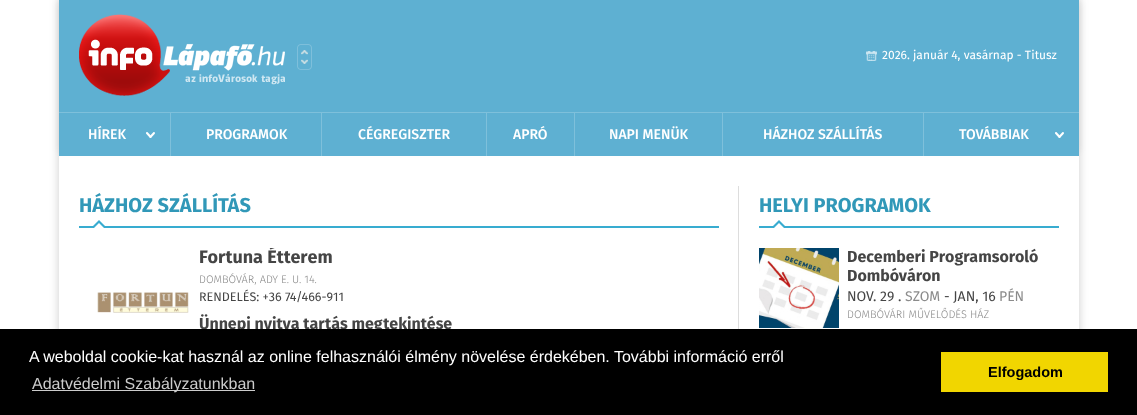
<?xml version="1.0" encoding="UTF-8"?>
<svg xmlns="http://www.w3.org/2000/svg" width="1137" height="415">
    <defs>
        <clipPath id="clip1"><path d="M 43 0 H 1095 V 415 H 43 Z M 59 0 H 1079 V 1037 H 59 Z" clip-rule="evenodd"/></clipPath>
        <filter id="blur1" x="-50%" y="-200%" width="200%" height="500%"><feGaussianBlur stdDeviation="5"/></filter>
        <filter id="blur2" x="-50%" y="-200%" width="200%" height="500%"><feGaussianBlur stdDeviation="3.5"/></filter>
        <clipPath id="clip2"><rect x="79" y="248" width="640" height="150"/></clipPath>
    </defs>
    <rect width="100%" height="100%" fill="#FFFFFF"/>
    <g clip-path="url(#clip1)">
        <rect x="59" y="0" width="1020" height="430" fill="#000000" fill-opacity="0.2" filter="url(#blur1)"/>
    </g>
    <rect x="59" y="-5" width="1020" height="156" fill="#000000" fill-opacity="0.09" filter="url(#blur2)"/>
    <rect x="59" y="0" width="1020" height="156" fill="#5EB0D2"/>
    <image x="79" y="14" width="206" height="82" href="img_01.png"/>
    <image x="297" y="44" width="15" height="26" href="img_02.png"/>
    <image x="866" y="51" width="11" height="10" href="img_03.png"/>
    <text x="882" y="59" font-family="Fira Sans" font-size="12" fill="#FFFFFF">2026. január 4, vasárnap - Titusz</text>
    <rect x="59" y="112" width="1020" height="1" fill="#7EC0DB"/>
    <rect x="170" y="113" width="1" height="43" fill="#7EC0DB"/>
    <image x="146" y="132" width="9" height="6" href="img_04.png"/>
    <text x="88" y="139" font-family="Fira Sans" font-size="14" font-weight="500" fill="#FFFFFF">HÍREK</text>
    <rect x="321" y="113" width="1" height="43" fill="#7EC0DB"/>
    <text x="206" y="139" font-family="Fira Sans" font-size="14" font-weight="500" fill="#FFFFFF">PROGRAMOK</text>
    <rect x="486" y="113" width="1" height="43" fill="#7EC0DB"/>
    <text x="358" y="139" font-family="Fira Sans" font-size="14" font-weight="500" fill="#FFFFFF">CÉGREGISZTER</text>
    <rect x="574" y="113" width="1" height="43" fill="#7EC0DB"/>
    <text x="513" y="139" font-family="Fira Sans" font-size="14" font-weight="500" fill="#FFFFFF">APRÓ</text>
    <rect x="722" y="113" width="1" height="43" fill="#7EC0DB"/>
    <text x="609" y="139" font-family="Fira Sans" font-size="14" font-weight="500" fill="#FFFFFF">NAPI MENÜK</text>
    <rect x="923" y="113" width="1" height="43" fill="#7EC0DB"/>
    <text x="763" y="139" font-family="Fira Sans" font-size="14" font-weight="500" fill="#FFFFFF">HÁZHOZ SZÁLLÍTÁS</text>
    <image x="1055" y="132" width="9" height="6" href="img_04.png"/>
    <text x="959" y="139" font-family="Fira Sans" font-size="14" font-weight="500" fill="#FFFFFF">TOVÁBBIAK</text>
    <rect x="738" y="186" width="1" height="143" fill="#DDDDDD"/>
    <rect x="79" y="226" width="640" height="2" fill="#38ACD0"/>
    <text x="79" y="212" font-family="Fira Sans" font-size="20" font-weight="700" fill="#3198B8">HÁZHOZ SZÁLLÍTÁS</text>
    <path d="M 107 228 H 91 L 99 220 Z" fill="#38ACD0"/>
    <path d="M 104 228 H 94 L 99 223 Z" fill="#FFFFFF"/>
    <g clip-path="url(#clip2)">
        <text x="199" y="263" font-family="Fira Sans" font-size="18" font-weight="700" fill="#454545">Fortuna Étterem</text>
    </g>
    <text x="199" y="283" font-family="Fira Sans" font-size="11" font-weight="300" fill="#8B8B8B">DOMBÓVÁR, ADY E. U. 14.</text>
    <image x="97" y="292" width="92" height="21" href="img_05.png"/>
    <text x="199" y="301" font-family="Fira Sans" font-size="12.5" fill="#454545">RENDELÉS: +36 74/466-911</text>
    <text x="199" y="329" font-family="Fira Sans" font-size="16" font-weight="700" fill="#454545">Ünnepi nyitva tartás megtekintése</text>
    <rect x="759" y="226" width="300" height="2" fill="#38ACD0"/>
    <text x="759" y="212" font-family="Fira Sans" font-size="20" font-weight="700" fill="#3198B8">HELYI PROGRAMOK</text>
    <path d="M 787 228 H 771 L 779 220 Z" fill="#38ACD0"/>
    <path d="M 784 228 H 774 L 779 223 Z" fill="#FFFFFF"/>
    <image x="759" y="248" width="80" height="80" href="img_06.png"/>
    <text font-family="Fira Sans" font-size="16" font-weight="700" fill="#454545">
        <tspan x="847" y="262">Decemberi Programsoroló</tspan>
        <tspan x="847" y="281">Dombóváron</tspan>
    </text>
    <text x="847" y="301" font-family="Fira Sans" font-size="14" fill="#454545">NOV. 29 .</text>
    <text x="905" y="301" font-family="Fira Sans" font-size="14" fill="#8B8B8B">SZOM</text>
    <text x="944" y="301" font-family="Fira Sans" font-size="14" fill="#454545">- JAN, 16</text>
    <text x="999" y="301" font-family="Fira Sans" font-size="14" fill="#8B8B8B">PÉN</text>
    <text x="847" y="318" font-family="Fira Sans" font-size="11" font-weight="300" fill="#8B8B8B">DOMBÓVÁRI MŰVELŐDÉS HÁZ</text>
    <rect x="0" y="329" width="1137" height="86" fill="#000000"/>
    <text x="29" y="362" font-family="Liberation Sans" font-size="16" fill="#FFFFFF">A weboldal cookie-kat használ az online felhasználói élmény növelése érdekében. További információ erről</text>
    <rect x="32" y="390" width="223" height="1" fill="#CCCCCC"/>
    <text x="32" y="389" font-family="Liberation Sans" font-size="16" fill="#CCCCCC">Adatvédelmi Szabályzatunkban</text>
    <rect x="941" y="352" width="167" height="40" fill="#F1D600"/>
    <text x="988" y="377" font-family="Liberation Sans" font-size="14.5" font-weight="700" fill="#000000">Elfogadom</text>
</svg>
